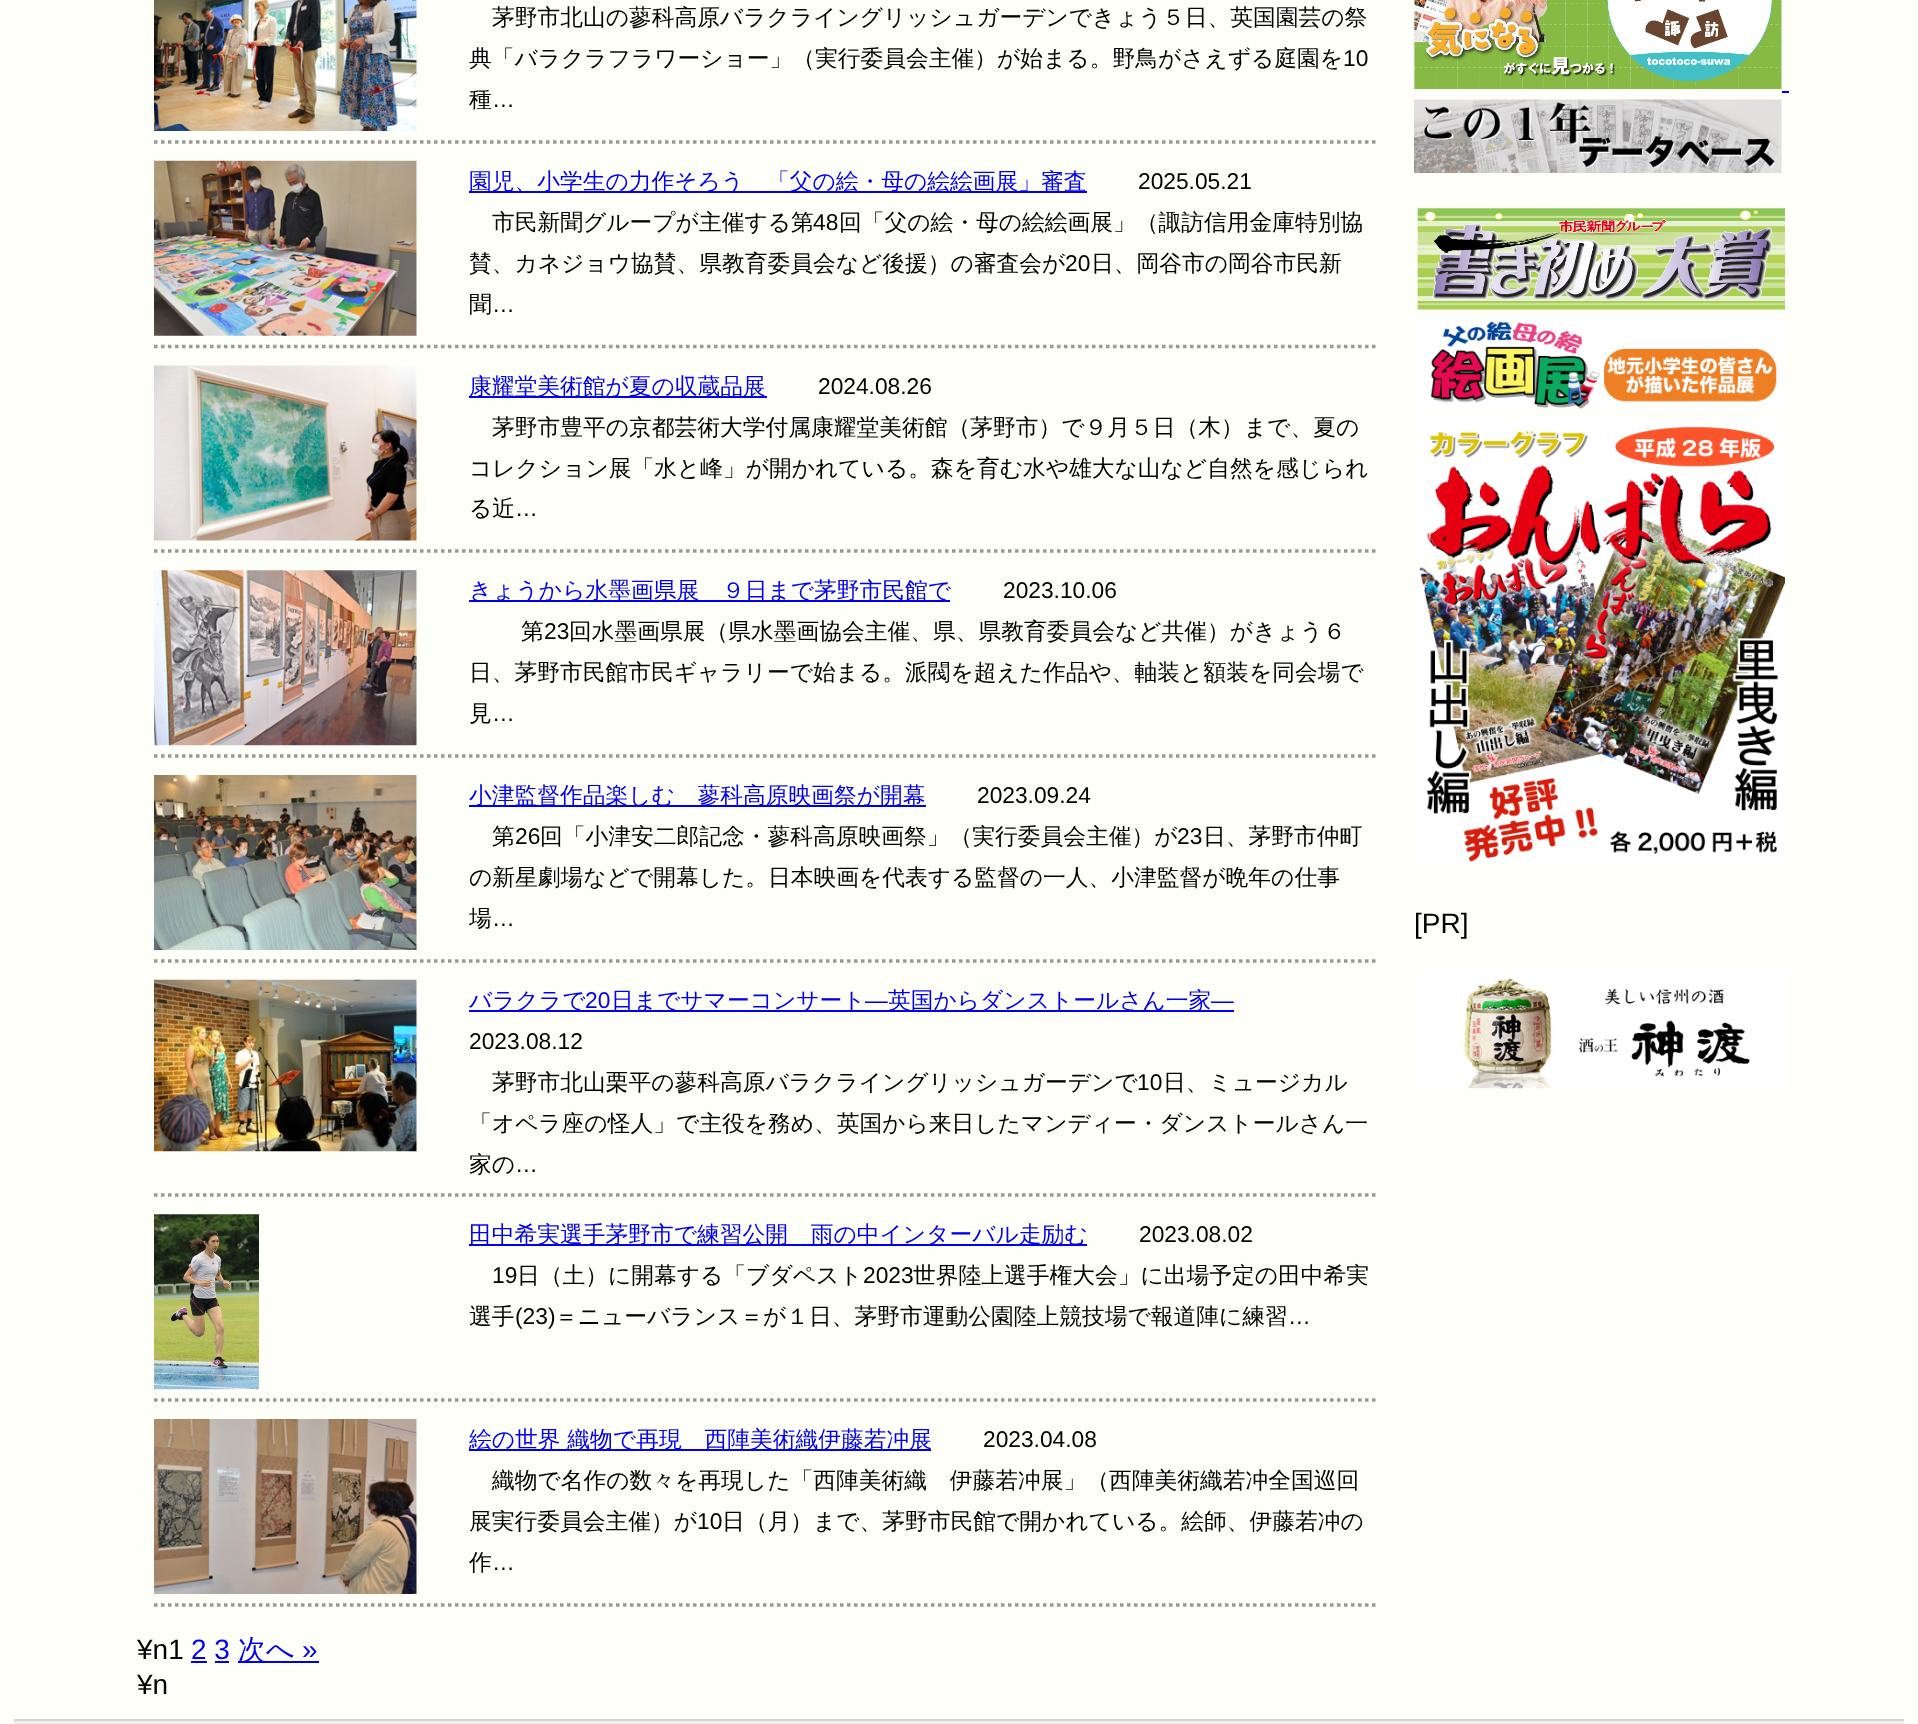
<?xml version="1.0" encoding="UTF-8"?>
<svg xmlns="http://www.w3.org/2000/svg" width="1918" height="1724">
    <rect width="100%" height="100%" fill="#FFFFFA"/>
    <path d="M 154 142 H 1379" fill="none" stroke="#999999" stroke-width="3.5" stroke-dasharray="3.5 3.5"/>
    <image x="154" y="0" width="263" height="131" href="img_01.png"/>
    <text x="492" y="25" font-family="WenQuanYi Zen Hei" font-size="22.75" font-weight="500" fill="#000000">茅野市北山の蓼科高原バラクライングリッシュガーデンできょう５日、英国園芸の祭</text>
    <text x="469" y="66" font-family="WenQuanYi Zen Hei" font-size="22.75" font-weight="500" fill="#000000">典「バラクラフラワーショー」（実行委員会主催）が始まる。野鳥がさえずる庭園を</text>
    <text x="1343" y="66" font-family="Liberation Sans" font-size="22.75" fill="#000000">10</text>
    <text x="469" y="107" font-family="WenQuanYi Zen Hei" font-size="22.75" font-weight="500" fill="#000000">種</text>
    <text x="492" y="107" font-family="Liberation Sans" font-size="22.75" fill="#000000">…</text>
    <path d="M 154 346.5 H 1379" fill="none" stroke="#999999" stroke-width="3.5" stroke-dasharray="3.5 3.5"/>
    <image x="154" y="160" width="263" height="176" href="img_02.png"/>
    <rect x="469" y="191" width="618" height="2" fill="#0000EE"/>
    <text x="469" y="189" font-family="WenQuanYi Zen Hei" font-size="22.75" font-weight="500" fill="#0000EE">園児、小学生の力作そろう　「父の絵・母の絵絵画展」審査</text>
    <text x="1138" y="189" font-family="Liberation Sans" font-size="22.75" fill="#000000">2025.05.21</text>
    <text x="492" y="230" font-family="WenQuanYi Zen Hei" font-size="22.75" font-weight="500" fill="#000000">市民新聞グループが主催する第</text>
    <text x="813" y="230" font-family="Liberation Sans" font-size="22.75" fill="#000000">48</text>
    <text x="839" y="230" font-family="WenQuanYi Zen Hei" font-size="22.75" font-weight="500" fill="#000000">回「父の絵・母の絵絵画展」（諏訪信用金庫特別協</text>
    <text x="469" y="271" font-family="WenQuanYi Zen Hei" font-size="22.75" font-weight="500" fill="#000000">賛、カネジョウ協賛、県教育委員会など後援）の審査会が</text>
    <text x="1065" y="271" font-family="Liberation Sans" font-size="22.75" fill="#000000">20</text>
    <text x="1091" y="271" font-family="WenQuanYi Zen Hei" font-size="22.75" font-weight="500" fill="#000000">日、岡谷市の岡谷市民新</text>
    <text x="469" y="312" font-family="WenQuanYi Zen Hei" font-size="22.75" font-weight="500" fill="#000000">聞</text>
    <text x="492" y="312" font-family="Liberation Sans" font-size="22.75" fill="#000000">…</text>
    <path d="M 154 551 H 1379" fill="none" stroke="#999999" stroke-width="3.5" stroke-dasharray="3.5 3.5"/>
    <image x="154" y="365" width="263" height="176" href="img_03.png"/>
    <rect x="469" y="396" width="298" height="2" fill="#0000EE"/>
    <text x="469" y="394" font-family="WenQuanYi Zen Hei" font-size="22.75" font-weight="500" fill="#0000EE">康耀堂美術館が夏の収蔵品展</text>
    <text x="818" y="394" font-family="Liberation Sans" font-size="22.75" fill="#000000">2024.08.26</text>
    <text x="492" y="435" font-family="WenQuanYi Zen Hei" font-size="22.75" font-weight="500" fill="#000000">茅野市豊平の京都芸術大学付属康耀堂美術館（茅野市）で９月５日（木）まで、夏の</text>
    <text font-family="WenQuanYi Zen Hei" font-size="22.75" font-weight="500" fill="#000000">
        <tspan x="469" y="476">コレクション展「水と峰」が開かれている。森を育む水や雄大な山など自然を感じられ</tspan>
        <tspan x="469" y="516">る近</tspan>
    </text>
    <text x="515" y="516" font-family="Liberation Sans" font-size="22.75" fill="#000000">…</text>
    <path d="M 154 756 H 1379" fill="none" stroke="#999999" stroke-width="3.5" stroke-dasharray="3.5 3.5"/>
    <image x="154" y="570" width="263" height="176" href="img_04.png"/>
    <rect x="469" y="600" width="481" height="2" fill="#0000EE"/>
    <text x="469" y="598" font-family="WenQuanYi Zen Hei" font-size="22.75" font-weight="500" fill="#0000EE">きょうから水墨画県展　９日まで茅野市民館で</text>
    <text x="1003" y="598" font-family="Liberation Sans" font-size="22.75" fill="#000000">2023.10.06</text>
    <text x="521" y="639" font-family="WenQuanYi Zen Hei" font-size="22.75" font-weight="500" fill="#000000">第</text>
    <text x="544" y="639" font-family="Liberation Sans" font-size="22.75" fill="#000000">23</text>
    <text x="569" y="639" font-family="WenQuanYi Zen Hei" font-size="22.75" font-weight="500" fill="#000000">回水墨画県展（県水墨画協会主催、県、県教育委員会など共催）がきょう６</text>
    <text font-family="WenQuanYi Zen Hei" font-size="22.75" font-weight="500" fill="#000000">
        <tspan x="469" y="680">日、茅野市民館市民ギャラリーで始まる。派閥を超えた作品や、軸装と額装を同会場で</tspan>
        <tspan x="469" y="721">見</tspan>
    </text>
    <text x="492" y="721" font-family="Liberation Sans" font-size="22.75" fill="#000000">…</text>
    <path d="M 154 961 H 1379" fill="none" stroke="#999999" stroke-width="3.5" stroke-dasharray="3.5 3.5"/>
    <image x="154" y="775" width="263" height="175" href="img_05.png"/>
    <rect x="469" y="805" width="457" height="2" fill="#0000EE"/>
    <text x="469" y="803" font-family="WenQuanYi Zen Hei" font-size="22.75" font-weight="500" fill="#0000EE">小津監督作品楽しむ　蓼科高原映画祭が開幕</text>
    <text x="977" y="803" font-family="Liberation Sans" font-size="22.75" fill="#000000">2023.09.24</text>
    <text x="492" y="844" font-family="WenQuanYi Zen Hei" font-size="22.75" font-weight="500" fill="#000000">第</text>
    <text x="515" y="844" font-family="Liberation Sans" font-size="22.75" fill="#000000">26</text>
    <text x="540" y="844" font-family="WenQuanYi Zen Hei" font-size="22.75" font-weight="500" fill="#000000">回「小津安二郎記念・蓼科高原映画祭」（実行委員会主催）が</text>
    <text x="1177" y="844" font-family="Liberation Sans" font-size="22.75" fill="#000000">23</text>
    <text x="1203" y="844" font-family="WenQuanYi Zen Hei" font-size="22.75" font-weight="500" fill="#000000">日、茅野市仲町</text>
    <text font-family="WenQuanYi Zen Hei" font-size="22.75" font-weight="500" fill="#000000">
        <tspan x="469" y="885">の新星劇場などで開幕した。日本映画を代表する監督の一人、小津監督が晩年の仕事</tspan>
        <tspan x="469" y="926">場</tspan>
    </text>
    <text x="492" y="926" font-family="Liberation Sans" font-size="22.75" fill="#000000">…</text>
    <path d="M 154 1195 H 1379" fill="none" stroke="#999999" stroke-width="3.5" stroke-dasharray="3.5 3.5"/>
    <image x="154" y="979" width="263" height="173" href="img_06.png"/>
    <rect x="469" y="1010" width="765" height="2" fill="#0000EE"/>
    <text x="469" y="1008" font-family="WenQuanYi Zen Hei" font-size="22.75" font-weight="500" fill="#0000EE">バラクラで</text>
    <text x="585" y="1008" font-family="Liberation Sans" font-size="22.75" fill="#0000EE">20</text>
    <text x="611" y="1008" font-family="WenQuanYi Zen Hei" font-size="22.75" font-weight="500" fill="#0000EE">日までサマーコンサート</text>
    <text x="865" y="1008" font-family="Liberation Sans" font-size="22.75" fill="#0000EE">—</text>
    <text x="888" y="1008" font-family="WenQuanYi Zen Hei" font-size="22.75" font-weight="500" fill="#0000EE">英国からダンストールさん一家</text>
    <text x="1211" y="1008" font-family="Liberation Sans" font-size="22.75" fill="#0000EE">—</text>
    <text x="469" y="1049" font-family="Liberation Sans" font-size="22.75" fill="#000000">2023.08.12</text>
    <text x="492" y="1090" font-family="WenQuanYi Zen Hei" font-size="22.75" font-weight="500" fill="#000000">茅野市北山栗平の蓼科高原バラクライングリッシュガーデンで</text>
    <text x="1137" y="1090" font-family="Liberation Sans" font-size="22.75" fill="#000000">10</text>
    <text x="1163" y="1090" font-family="WenQuanYi Zen Hei" font-size="22.75" font-weight="500" fill="#000000">日、ミュージカル</text>
    <text font-family="WenQuanYi Zen Hei" font-size="22.75" font-weight="500" fill="#000000">
        <tspan x="469" y="1131">「オペラ座の怪人」で主役を務め、英国から来日したマンディー・ダンストールさん一</tspan>
        <tspan x="469" y="1172">家の</tspan>
    </text>
    <text x="515" y="1172" font-family="Liberation Sans" font-size="22.75" fill="#000000">…</text>
    <path d="M 154 1400 H 1379" fill="none" stroke="#999999" stroke-width="3.5" stroke-dasharray="3.5 3.5"/>
    <image x="154" y="1214" width="105" height="176" href="img_07.png"/>
    <rect x="469" y="1244" width="618" height="2" fill="#0000EE"/>
    <text x="469" y="1242" font-family="WenQuanYi Zen Hei" font-size="22.75" font-weight="500" fill="#0000EE">田中希実選手茅野市で練習公開　雨の中インターバル走励む</text>
    <text x="1139" y="1242" font-family="Liberation Sans" font-size="22.75" fill="#000000">2023.08.02</text>
    <text x="492" y="1283" font-family="Liberation Sans" font-size="22.75" fill="#000000">19</text>
    <text x="517" y="1283" font-family="WenQuanYi Zen Hei" font-size="22.75" font-weight="500" fill="#000000">日（土）に開幕する「ブダペスト</text>
    <text x="863" y="1283" font-family="Liberation Sans" font-size="22.75" fill="#000000">2023</text>
    <text x="913" y="1283" font-family="WenQuanYi Zen Hei" font-size="22.75" font-weight="500" fill="#000000">世界陸上選手権大会」に出場予定の田中希実</text>
    <text x="469" y="1324" font-family="WenQuanYi Zen Hei" font-size="22.75" font-weight="500" fill="#000000">選手</text>
    <text x="515" y="1324" font-family="Liberation Sans" font-size="22.75" fill="#000000">(23)</text>
    <text x="555" y="1324" font-family="WenQuanYi Zen Hei" font-size="22.75" font-weight="500" fill="#000000">＝ニューバランス＝が１日、茅野市運動公園陸上競技場で報道陣に練習</text>
    <text x="1288" y="1324" font-family="Liberation Sans" font-size="22.75" fill="#000000">…</text>
    <path d="M 154 1605 H 1379" fill="none" stroke="#999999" stroke-width="3.5" stroke-dasharray="3.5 3.5"/>
    <image x="154" y="1419" width="263" height="175" href="img_08.png"/>
    <rect x="469" y="1449" width="462" height="2" fill="#0000EE"/>
    <text x="469" y="1447" font-family="WenQuanYi Zen Hei" font-size="22.75" font-weight="500" fill="#0000EE">絵の世界 織物で再現　西陣美術織伊藤若冲展</text>
    <text x="983" y="1447" font-family="Liberation Sans" font-size="22.75" fill="#000000">2023.04.08</text>
    <text x="492" y="1488" font-family="WenQuanYi Zen Hei" font-size="22.75" font-weight="500" fill="#000000">織物で名作の数々を再現した「西陣美術織　伊藤若冲展」（西陣美術織若冲全国巡回</text>
    <text x="469" y="1529" font-family="WenQuanYi Zen Hei" font-size="22.75" font-weight="500" fill="#000000">展実行委員会主催）が</text>
    <text x="697" y="1529" font-family="Liberation Sans" font-size="22.75" fill="#000000">10</text>
    <text x="722" y="1529" font-family="WenQuanYi Zen Hei" font-size="22.75" font-weight="500" fill="#000000">日（月）まで、茅野市民館で開かれている。絵師、伊藤若冲の</text>
    <text x="469" y="1570" font-family="WenQuanYi Zen Hei" font-size="22.75" font-weight="500" fill="#000000">作</text>
    <text x="492" y="1570" font-family="Liberation Sans" font-size="22.75" fill="#000000">…</text>
    <text x="137" y="1659" font-family="Liberation Sans" font-size="28" fill="#000000">¥n1</text>
    <text x="191" y="1659" font-family="Liberation Sans" font-size="28" fill="#0000EE">2 3</text>
    <rect x="191" y="1661" width="16" height="2" fill="#0000EE"/>
    <rect x="238" y="1661" width="81" height="2" fill="#0000EE"/>
    <text x="238" y="1659" font-family="WenQuanYi Zen Hei" font-size="28" font-weight="500" fill="#0000EE">次へ</text>
    <text x="302" y="1659" font-family="Liberation Sans" font-size="28" fill="#0000EE">»</text>
    <rect x="215" y="1661" width="14" height="2" fill="#0000EE"/>
    <text x="137" y="1694" font-family="Liberation Sans" font-size="28" fill="#000000">¥n</text>
    <image x="1414" y="0" width="368" height="89" href="img_09.png"/>
    <rect x="1782" y="91" width="7" height="2" fill="#0000EE"/>
    <image x="1414" y="99" width="368" height="74" href="img_10.png"/>
    <image x="1417" y="208" width="368" height="102" href="img_11.png"/>
    <image x="1418" y="319" width="367" height="90" href="img_12.png"/>
    <image x="1418" y="418" width="367" height="446" href="img_13.png"/>
    <text x="1414" y="933" font-family="Liberation Sans" font-size="28" fill="#000000">[PR]</text>
    <image x="1420" y="971" width="366" height="118" href="img_14.png"/>
    <rect x="14" y="1721" width="1890" height="3" fill="#EFEFEF"/>
    <rect x="14" y="1719" width="1890" height="2" fill="#D4D4D4"/>
</svg>
